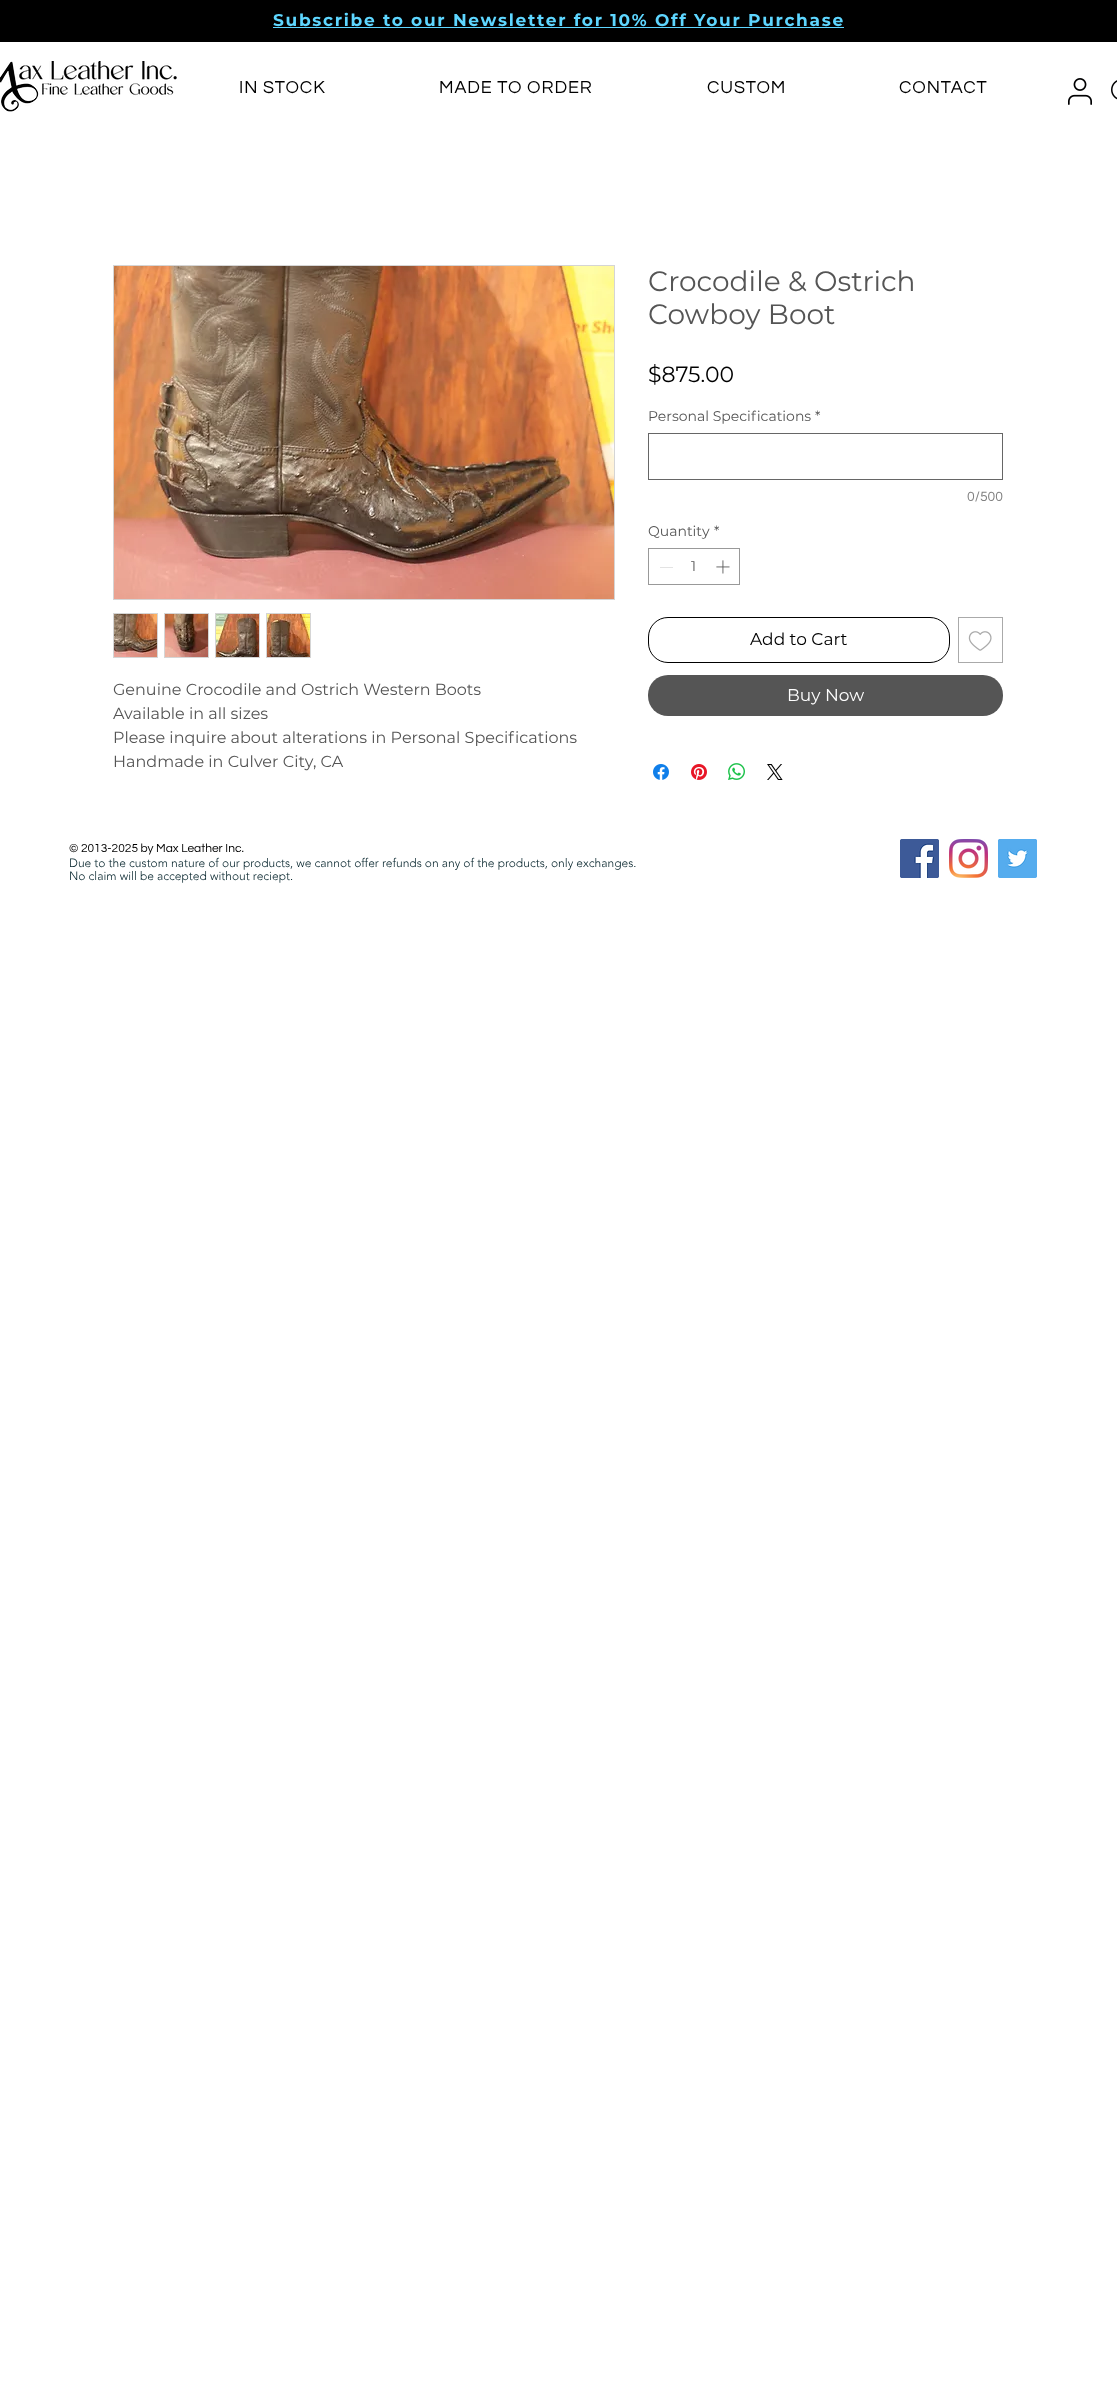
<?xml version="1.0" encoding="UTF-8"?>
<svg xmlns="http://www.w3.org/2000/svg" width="1117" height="2387">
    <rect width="100%" height="100%" fill="#FFFFFF"/>
    <rect x="0" y="0" width="1117" height="42" fill="#000000"/>
    <text x="273" y="26" font-family="Montserrat" font-size="17" font-weight="700" letter-spacing="1.7" fill="#5ED6FF">Subscribe to our Newsletter for 10% Off Your Purchase</text>
    <rect x="273" y="27" width="571" height="1" fill="#5ED6FF"/>
    <image x="0" y="61" width="177" height="51" href="img_01.png"/>
    <text x="239" y="93" font-family="Questrial" font-size="18" letter-spacing="0.9" fill="#000000">IN STOCK</text>
    <text x="439" y="93" font-family="Questrial" font-size="18" letter-spacing="0.9" fill="#000000">MADE TO ORDER</text>
    <text x="707" y="93" font-family="Questrial" font-size="18" letter-spacing="0.9" fill="#000000">CUSTOM</text>
    <text x="899" y="93" font-family="Questrial" font-size="18" letter-spacing="0.9" fill="#000000">CONTACT</text>
    <image x="1068" y="78" width="24" height="27" href="img_02.png"/>
    <image x="1111" y="80" width="6" height="20" href="img_03.png"/>
    <text font-family="Montserrat" font-size="28" fill="#555555">
        <tspan x="648" y="291">Crocodile &amp; Ostrich</tspan>
        <tspan x="648" y="324">Cowboy Boot</tspan>
    </text>
    <text x="648" y="382" font-family="Montserrat" font-size="22" fill="#000000">$875.00</text>
    <text x="648" y="421" font-family="Montserrat" font-size="14" fill="#555555">Personal Specifications</text>
    <text x="815" y="421" font-family="Montserrat" font-size="14" fill="#555555">*</text>
    <rect x="648.5" y="433.5" width="354" height="46" fill="none" stroke="#666666"/>
    <text x="967" y="501" font-family="Questrial" font-size="14" fill="#808080">0/500</text>
    <text x="648" y="536" font-family="Montserrat" font-size="14" fill="#555555">Quantity</text>
    <text x="714" y="536" font-family="Montserrat" font-size="14" fill="#555555">*</text>
    <rect x="648.5" y="548.5" width="91" height="36" fill="none" stroke="#999999"/>
    <rect x="660" y="567" width="13" height="1" fill="#E3E3E3"/>
    <text x="691" y="571" font-family="Montserrat" font-size="14" fill="#555555">1</text>
    <image x="716" y="560" width="14" height="14" href="img_04.png"/>
    <rect x="648.5" y="617.5" width="301" height="45" rx="19.5" fill="none" stroke="#000000"/>
    <text x="750" y="645" font-family="Montserrat" font-size="17" fill="#000000">Add to Cart</text>
    <rect x="958.5" y="617.5" width="44" height="45" fill="none" stroke="#AAAAAA"/>
    <image x="968" y="631" width="24" height="20" href="img_05.png"/>
    <rect x="648" y="675" width="355" height="41" rx="20" fill="#555555"/>
    <text x="787" y="701" font-family="Montserrat" font-size="17" fill="#FFFFFF">Buy Now</text>
    <image x="653" y="764" width="16" height="16" href="img_06.png"/>
    <image x="691" y="764" width="16" height="16" href="img_07.png"/>
    <image x="728" y="763" width="17" height="17" href="img_08.png"/>
    <image x="767" y="764" width="16" height="16" href="img_09.png"/>
    <rect x="113.5" y="265.5" width="501" height="334" fill="none" stroke="#D5D5D5"/>
    <image x="114" y="266" width="500" height="333" href="img_10.png"/>
    <rect x="113" y="613" width="45" height="45" fill="#D5D5D5"/>
    <image x="114" y="614" width="43" height="43" href="img_11.png"/>
    <rect x="164" y="613" width="45" height="45" fill="#D5D5D5"/>
    <image x="165" y="614" width="43" height="43" href="img_12.png"/>
    <rect x="215" y="613" width="45" height="45" fill="#D5D5D5"/>
    <image x="216" y="614" width="43" height="43" href="img_13.png"/>
    <rect x="266" y="613" width="45" height="45" fill="#D5D5D5"/>
    <image x="267" y="614" width="43" height="43" href="img_14.png"/>
    <text font-family="Montserrat" font-size="16" fill="#555555">
        <tspan x="113" y="695">Genuine Crocodile and Ostrich Western Boots</tspan>
        <tspan x="113" y="719">Available in all sizes</tspan>
        <tspan x="113" y="743">Please inquire about alterations in Personal Specifications</tspan>
        <tspan x="113" y="767">Handmade in Culver City, CA</tspan>
    </text>
    <text x="69" y="852" font-family="Questrial" font-size="12" fill="#000000">© 2013-2025 by Max Leather Inc.</text>
    <image x="900" y="839" width="39" height="39" href="img_15.png"/>
    <image x="949" y="839" width="39" height="39" href="img_16.png"/>
    <image x="998" y="839" width="39" height="39" href="img_17.png"/>
    <text font-family="'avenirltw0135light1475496'" font-size="12" font-weight="300" fill="#002028">
        <tspan x="69" y="867">Due to the custom nature of our products, we cannot offer refunds on any of the products, only exchanges.</tspan>
        <tspan x="69" y="880">No claim will be accepted without reciept.</tspan>
    </text>
</svg>
